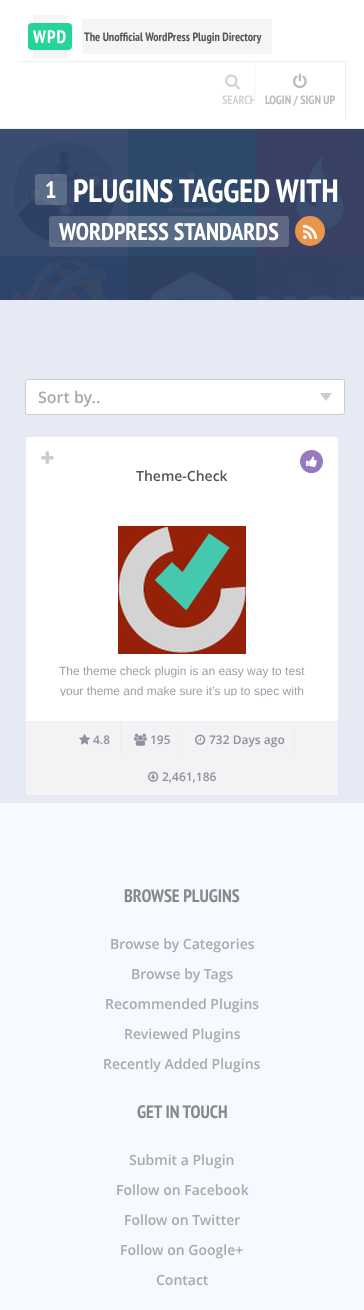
<?xml version="1.0" encoding="UTF-8"?>
<svg xmlns="http://www.w3.org/2000/svg" width="364" height="1310">
    <defs>
        <clipPath id="clip1"><rect x="212" y="62" width="42" height="42"/></clipPath>
        <clipPath id="clip2"><rect x="26" y="656" width="312" height="40"/></clipPath>
    </defs>
    <rect width="100%" height="100%" fill="#E6EAF5"/>
    <rect x="0" y="0" width="364" height="128" fill="#FFFFFF"/>
    <rect x="0" y="128" width="364" height="1" fill="#EEEEEE"/>
    <rect x="18" y="61" width="330" height="1" fill="#EEEEEE"/>
    <rect x="33" y="15" width="34" height="43" fill="#F5F5F5"/>
    <rect x="28" y="23" width="44" height="27" rx="4" fill="#25D49A"/>
    <text x="33" y="43" font-family="PT Sans Narrow" font-size="18" font-weight="700" letter-spacing="1" fill="#FFFFFF">WPD</text>
    <rect x="82" y="19" width="190" height="35" fill="#F5F5F5"/>
    <text x="84" y="41" font-family="PT Sans Narrow" font-size="12" font-weight="700" fill="#555555">The Unofficial WordPress Plugin Directory</text>
    <rect x="254" y="62" width="1" height="42" fill="#F4F4F4"/>
    <image x="225" y="74" width="15" height="16" href="img_01.png"/>
    <g clip-path="url(#clip1)">
        <text x="222" y="104" font-family="PT Sans Narrow" font-size="12" font-weight="700" fill="#D4D4D4">SEARCH</text>
    </g>
    <rect x="345" y="62" width="1" height="57" fill="#EEEEEE"/>
    <image x="293" y="73" width="14" height="16" href="img_02.png"/>
    <text x="265" y="104" font-family="PT Sans Narrow" font-size="12" font-weight="700" fill="#BBBBBB">LOGIN / SIGN UP</text>
    <image x="0" y="129" width="364" height="171" href="img_03.png"/>
    <rect x="35" y="174" width="32" height="31" rx="3" fill="#FFFFFF" fill-opacity="0.2"/>
    <text x="45" y="198" font-family="PT Sans Narrow" font-size="24" font-weight="700" fill="#FFFFFF">1</text>
    <text x="73" y="202" font-family="PT Sans Narrow" font-size="32" font-weight="700" fill="#FFFFFF">PLUGINS TAGGED WITH</text>
    <rect x="49" y="216" width="240" height="31" rx="3" fill="#FFFFFF" fill-opacity="0.2"/>
    <text x="59" y="240" font-family="PT Sans Narrow" font-size="24" font-weight="700" fill="#FFFFFF">WORDPRESS STANDARDS</text>
    <circle cx="310" cy="231" r="15" fill="#E9954B"/>
    <image x="303" y="224" width="15" height="15" href="img_04.png"/>
    <rect x="25.5" y="379.5" width="319" height="35" rx="2.5" fill="#FFFFFF" stroke="#CCCCCC"/>
    <text x="38" y="403" font-family="Open Sans" font-size="16" font-weight="600" fill="#AAAAAA">Sort by..</text>
    <path d="M 320 393 H 332 L 326 401 Z" fill="#CCCCCC"/>
    <path d="M 345 413 L 344 414 L 344.5 414.5 Z" fill="#DEDFE2"/>
    <path d="M 25 413 L 26 414 L 25.5 414.5 Z" fill="#DEDFE2"/>
    <rect x="26" y="437" width="312" height="358" rx="3" fill="#FFFFFF"/>
    <circle cx="311.5" cy="461.5" r="11.5" fill="#9679C0"/>
    <image x="306" y="456" width="11" height="11" href="img_05.png"/>
    <image x="41" y="451" width="13" height="13" href="img_06.png"/>
    <text x="136" y="481" font-family="Open Sans" font-size="14" font-weight="600" fill="#555555">Theme-Check</text>
    <image x="118" y="526" width="128" height="128" href="img_07.png"/>
    <text x="59" y="675" font-family="Liberation Sans" font-size="12" fill="#9E9FAB">The theme check plugin is an easy way to test</text>
    <g clip-path="url(#clip2)">
        <text x="60" y="695" font-family="Liberation Sans" font-size="12" fill="#9E9FAB">your theme and make sure it’s up to spec with</text>
    </g>
    <path d="M 26 721 H 338 V 792 C 338 793.5 336.5 795 335 795 H 29 C 27.5 795 26 793.5 26 792 Z" fill="#F3F3F5"/>
    <rect x="120" y="721" width="1" height="37" fill="#EEEEEE"/>
    <image x="79" y="734" width="11" height="11" href="img_08.png"/>
    <text x="93" y="744" font-family="Open Sans" font-size="12" font-weight="600" fill="#8E919E">4.8</text>
    <rect x="181" y="721" width="1" height="37" fill="#EEEEEE"/>
    <image x="134" y="733" width="13" height="13" href="img_09.png"/>
    <text x="150" y="744" font-family="Open Sans" font-size="12" font-weight="600" fill="#8E919E">195</text>
    <rect x="294" y="721" width="1" height="37" fill="#EEEEEE"/>
    <image x="195" y="734" width="11" height="11" href="img_10.png"/>
    <text x="209" y="744" font-family="Open Sans" font-size="12" font-weight="600" fill="#8E919E">732 Days ago</text>
    <image x="148" y="771" width="11" height="11" href="img_11.png"/>
    <text x="162" y="781" font-family="Open Sans" font-size="12" font-weight="600" fill="#8E919E">2,461,186</text>
    <rect x="0" y="803" width="364" height="507" fill="#F6F9FF"/>
    <text x="124" y="902" font-family="PT Sans Narrow" font-size="18" font-weight="700" fill="#888888">BROWSE PLUGINS</text>
    <text x="110" y="949" font-family="Open Sans" font-size="14" font-weight="600" fill="#AAAAAA">Browse by Categories</text>
    <text x="131" y="979" font-family="Open Sans" font-size="14" font-weight="600" fill="#AAAAAA">Browse by Tags</text>
    <text x="105" y="1009" font-family="Open Sans" font-size="14" font-weight="600" fill="#AAAAAA">Recommended Plugins</text>
    <text x="124" y="1039" font-family="Open Sans" font-size="14" font-weight="600" fill="#AAAAAA">Reviewed Plugins</text>
    <text x="103" y="1069" font-family="Open Sans" font-size="14" font-weight="600" fill="#AAAAAA">Recently Added Plugins</text>
    <text x="137" y="1118" font-family="PT Sans Narrow" font-size="18" font-weight="700" fill="#888888">GET IN TOUCH</text>
    <text x="129" y="1165" font-family="Open Sans" font-size="14" font-weight="600" fill="#AAAAAA">Submit a Plugin</text>
    <text x="116" y="1195" font-family="Open Sans" font-size="14" font-weight="600" fill="#AAAAAA">Follow on Facebook</text>
    <text x="124" y="1225" font-family="Open Sans" font-size="14" font-weight="600" fill="#AAAAAA">Follow on Twitter</text>
    <text x="120" y="1255" font-family="Open Sans" font-size="14" font-weight="600" fill="#AAAAAA">Follow on Google+</text>
    <text x="156" y="1285" font-family="Open Sans" font-size="14" font-weight="600" fill="#AAAAAA">Contact</text>
</svg>
